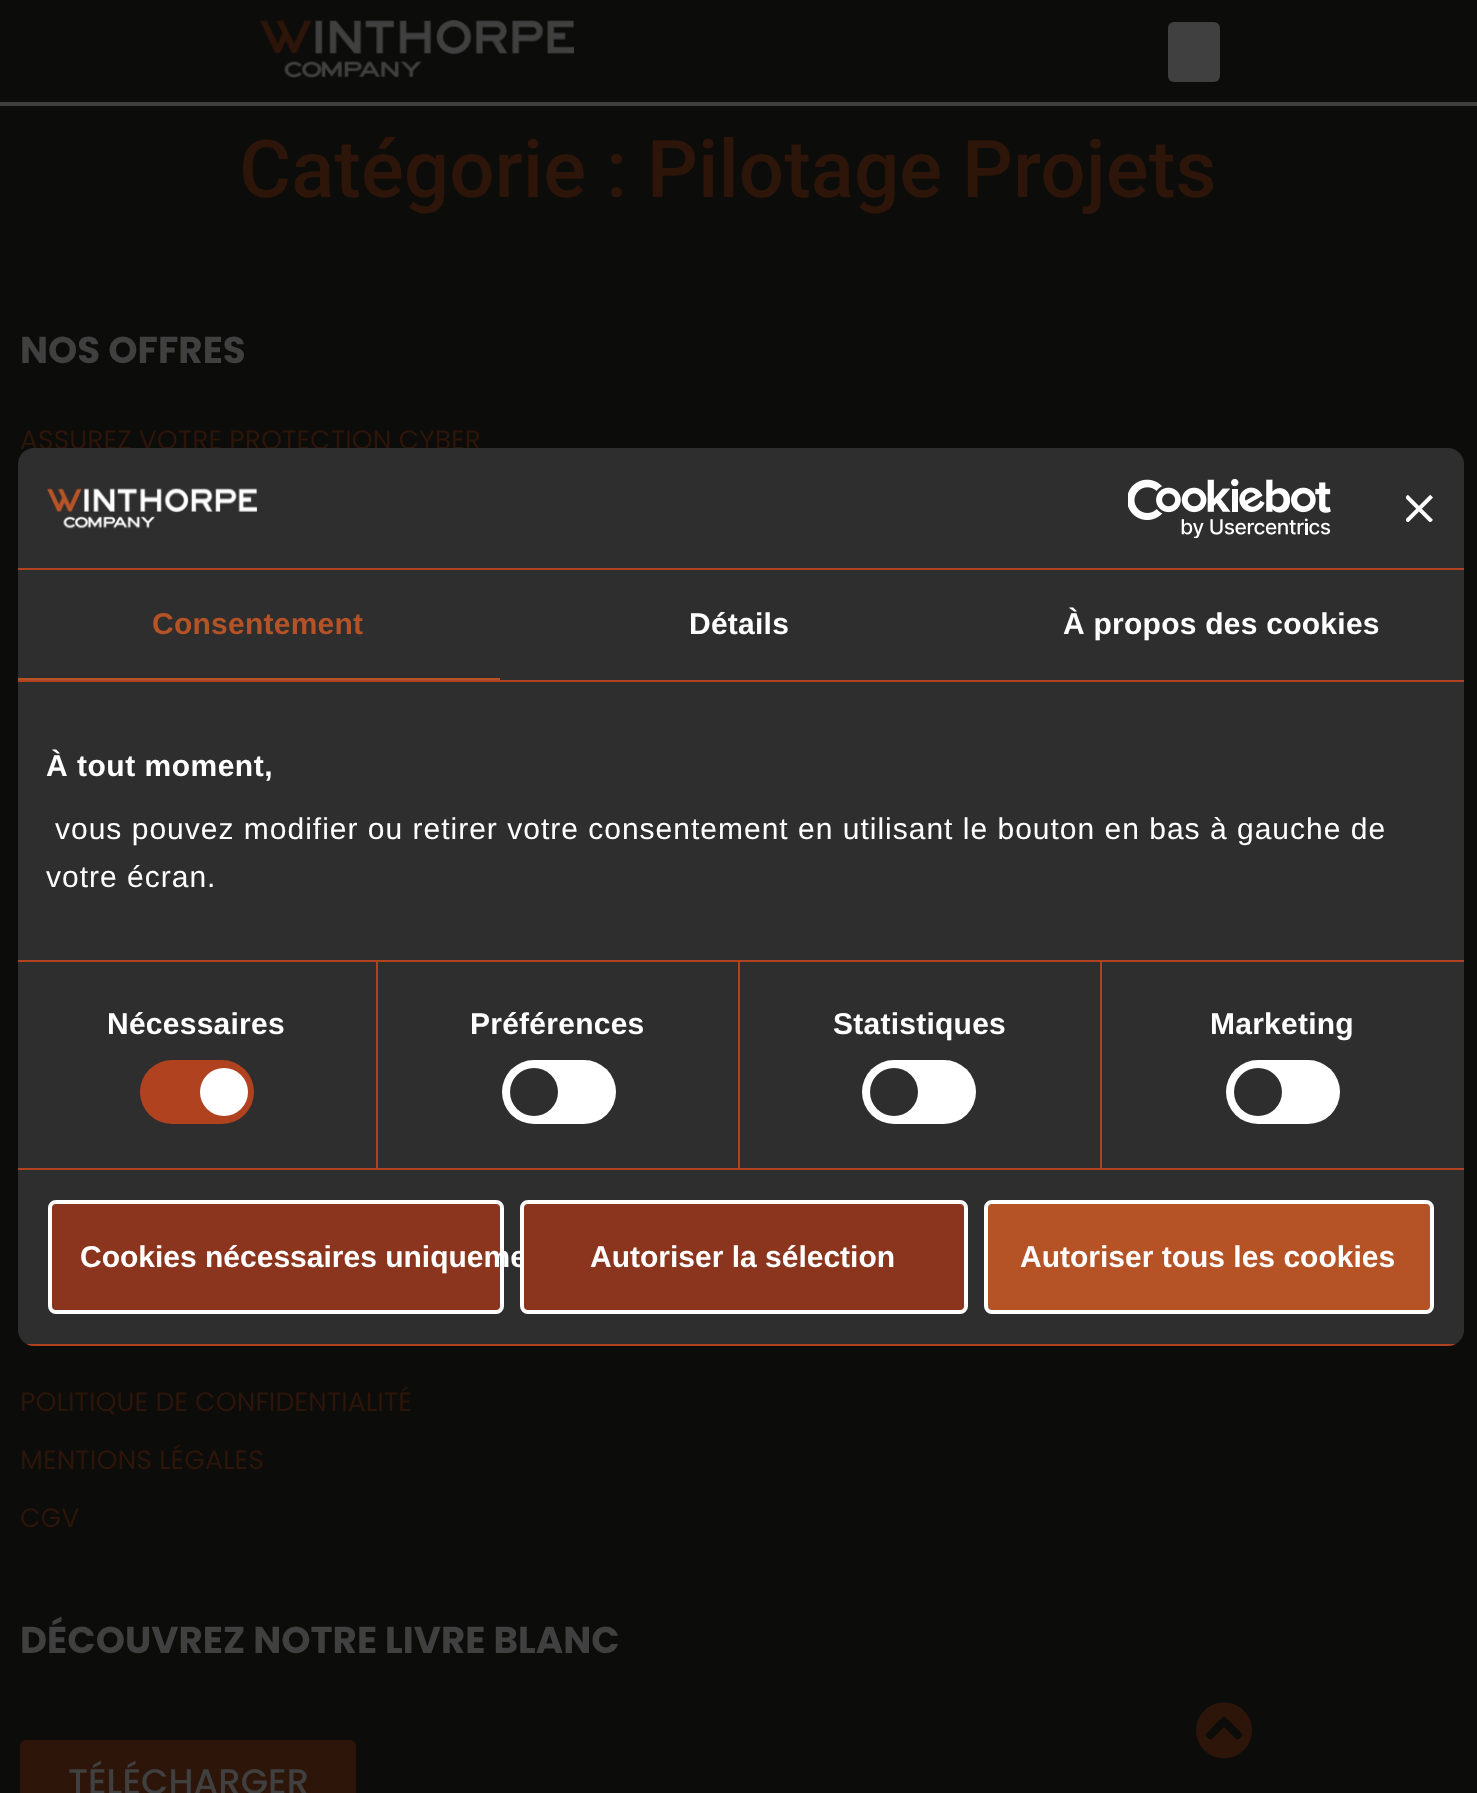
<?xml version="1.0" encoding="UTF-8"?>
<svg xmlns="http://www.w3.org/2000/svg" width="1477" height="1793">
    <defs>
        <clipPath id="clip1"><rect x="18" y="448" width="1446" height="898" rx="16"/></clipPath>
    </defs>
    <rect width="100%" height="100%" fill="#0C0C0B"/>
    <rect x="0" y="102" width="1477" height="4" fill="#404040"/>
    <image x="260" y="20" width="314" height="58" href="img_01.png"/>
    <rect x="1168" y="22" width="52" height="60" rx="6" fill="#404040"/>
    <text x="239" y="197" font-family="Roboto" font-size="80" font-weight="500" fill="#2D150A">Catégorie : Pilotage Projets</text>
    <text x="20" y="363" font-family="Poppins" font-size="37.3" font-weight="700" fill="#404040">NOS OFFRES</text>
    <text x="20" y="449" font-family="Poppins" font-size="26.7" fill="#2D150A">ASSUREZ VOTRE PROTECTION CYBER</text>
    <text x="20" y="1411" font-family="Poppins" font-size="26.7" fill="#2D150A">POLITIQUE DE CONFIDENTIALITÉ</text>
    <text x="20" y="1469" font-family="Poppins" font-size="26.7" fill="#2D150A">MENTIONS LÉGALES</text>
    <text x="20" y="1527" font-family="Poppins" font-size="26.7" fill="#2D150A">CGV</text>
    <text x="20" y="1653" font-family="Poppins" font-size="37.3" font-weight="700" fill="#404040">DÉCOUVREZ NOTRE LIVRE BLANC</text>
    <rect x="20" y="1740" width="336" height="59" rx="6" fill="#2D150A"/>
    <text x="68" y="1794" font-family="Poppins" font-size="35.5" font-weight="500" fill="#404040">TÉLÉCHARGER</text>
    <image x="1196" y="1702" width="56" height="57" href="img_02.png"/>
    <rect x="18" y="448" width="1446" height="898" rx="16" fill="#2E2E2E"/>
    <rect x="18" y="568" width="1446" height="2" fill="#B0421F"/>
    <image x="47" y="487" width="211" height="42" href="img_03.png"/>
    <image x="1128" y="478" width="203" height="60" href="img_04.png"/>
    <image x="1406" y="494" width="27" height="28" href="img_05.png"/>
    <rect x="18" y="680" width="1446" height="2" fill="#B0421F"/>
    <rect x="18" y="678" width="482" height="2" fill="#B55327"/>
    <text x="152" y="634" font-family="Liberation Sans" font-size="30" font-weight="700" letter-spacing="0.25" fill="#B55327">Consentement</text>
    <text x="689" y="634" font-family="Liberation Sans" font-size="30" font-weight="700" letter-spacing="0.25" fill="#FFFFFF">Détails</text>
    <text x="1063" y="634" font-family="Liberation Sans" font-size="30" font-weight="700" letter-spacing="0.25" fill="#FFFFFF">À propos des cookies</text>
    <rect x="18" y="960" width="1446" height="2" fill="#B0421F"/>
    <text x="46" y="776" font-family="Liberation Sans" font-size="30" font-weight="700" letter-spacing="0.5" fill="#FFFFFF">À tout moment,</text>
    <text x="55" y="839" font-family="Liberation Sans" font-size="30" letter-spacing="1" fill="#FFFFFF">vous pouvez modifier ou retirer votre consentement en utilisant le bouton en bas à gauche de</text>
    <text x="46" y="887" font-family="Liberation Sans" font-size="30" letter-spacing="1" fill="#FFFFFF">votre écran.</text>
    <rect x="18" y="1168" width="1446" height="2" fill="#B0421F"/>
    <rect x="376" y="962" width="2" height="206" fill="#B0421F"/>
    <text x="107" y="1034" font-family="Liberation Sans" font-size="30" font-weight="700" letter-spacing="0.25" fill="#FFFFFF">Nécessaires</text>
    <rect x="140" y="1060" width="114" height="64" rx="32" fill="#B0421F"/>
    <circle cx="224" cy="1092" r="24" fill="#FFFFFF"/>
    <rect x="738" y="962" width="2" height="206" fill="#B0421F"/>
    <text x="470" y="1034" font-family="Liberation Sans" font-size="30" font-weight="700" letter-spacing="0.25" fill="#FFFFFF">Préférences</text>
    <rect x="502" y="1060" width="114" height="64" rx="32" fill="#FFFFFF"/>
    <circle cx="534" cy="1092" r="24" fill="#2E2E2E"/>
    <rect x="1100" y="962" width="2" height="206" fill="#B0421F"/>
    <text x="833" y="1034" font-family="Liberation Sans" font-size="30" font-weight="700" letter-spacing="0.25" fill="#FFFFFF">Statistiques</text>
    <rect x="862" y="1060" width="114" height="64" rx="32" fill="#FFFFFF"/>
    <circle cx="894" cy="1092" r="24" fill="#2E2E2E"/>
    <text x="1210" y="1034" font-family="Liberation Sans" font-size="30" font-weight="700" letter-spacing="0.25" fill="#FFFFFF">Marketing</text>
    <rect x="1226" y="1060" width="114" height="64" rx="32" fill="#FFFFFF"/>
    <circle cx="1258" cy="1092" r="24" fill="#2E2E2E"/>
    <g clip-path="url(#clip1)">
        <rect x="18" y="1344" width="1446" height="2" fill="#B0421F"/>
    </g>
    <rect x="50" y="1202" width="452" height="110" rx="6" fill="#8C351E" stroke="#FFFFFF" stroke-width="4"/>
    <text x="80" y="1267" font-family="Liberation Sans" font-size="30" font-weight="700" fill="#FFFFFF">Cookies nécessaires uniqueme</text>
    <rect x="522" y="1202" width="444" height="110" rx="6" fill="#8C351E" stroke="#FFFFFF" stroke-width="4"/>
    <text x="590" y="1267" font-family="Liberation Sans" font-size="30" font-weight="700" fill="#FFFFFF">Autoriser la sélection</text>
    <rect x="986" y="1202" width="446" height="110" rx="6" fill="#B55327" stroke="#FFFFFF" stroke-width="4"/>
    <text x="1020" y="1267" font-family="Liberation Sans" font-size="30" font-weight="700" fill="#FFFFFF">Autoriser tous les cookies</text>
</svg>
